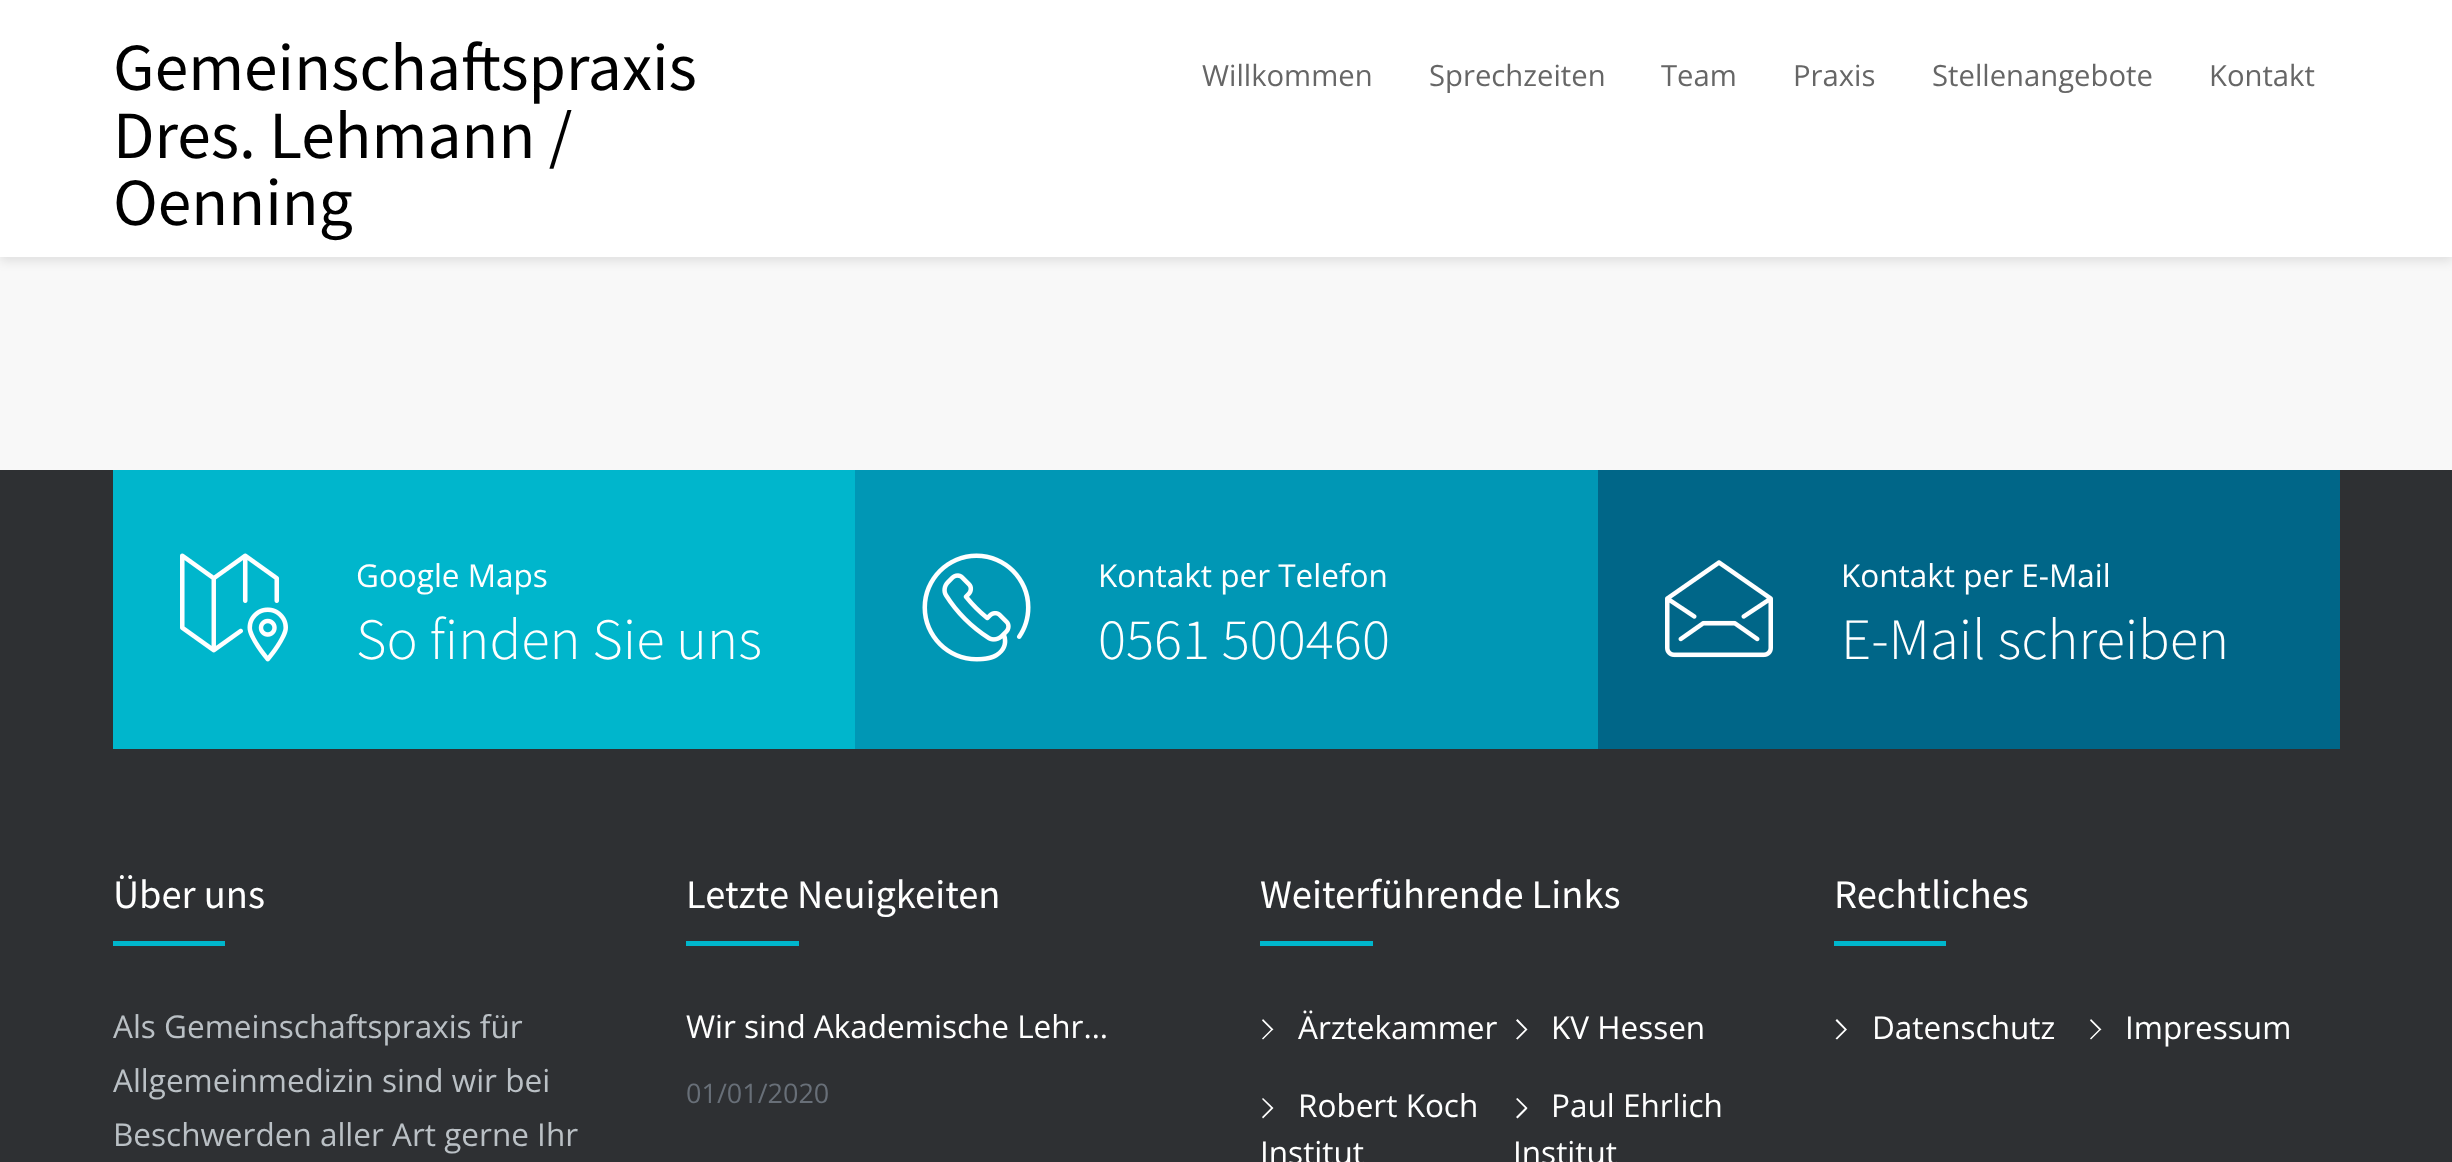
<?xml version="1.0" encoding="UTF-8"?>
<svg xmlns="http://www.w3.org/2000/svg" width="2452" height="1162">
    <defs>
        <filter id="blur1" x="-50%" y="-200%" width="200%" height="500%"><feGaussianBlur stdDeviation="5.5"/></filter>
    </defs>
    <rect width="100%" height="100%" fill="#F8F8F8"/>
    <rect x="0" y="5" width="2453" height="256" fill="#000000" fill-opacity="0.1" filter="url(#blur1)"/>
    <rect x="0" y="0" width="2452" height="257" fill="#FFFFFF"/>
    <text font-family="Source Sans Pro" font-size="67.5" fill="#000000">
        <tspan x="113" y="90">Gemeinschaftspraxis</tspan>
        <tspan x="113" y="158">Dres. Lehmann /</tspan>
        <tspan x="113" y="225">Oenning</tspan>
    </text>
    <text x="1202" y="86" font-family="Open Sans" font-size="29.25" fill="#666666">Willkommen</text>
    <text x="1429" y="86" font-family="Open Sans" font-size="29.25" fill="#666666">Sprechzeiten</text>
    <text x="1661" y="86" font-family="Open Sans" font-size="29.25" fill="#666666">Team</text>
    <text x="1793" y="86" font-family="Open Sans" font-size="29.25" fill="#666666">Praxis</text>
    <text x="1932" y="86" font-family="Open Sans" font-size="29.25" fill="#666666">Stellenangebote</text>
    <text x="2209" y="86" font-family="Open Sans" font-size="29.25" fill="#666666">Kontakt</text>
    <rect x="0" y="470" width="2452" height="692" fill="#2E3033"/>
    <rect x="113" y="470" width="742" height="279" fill="#00B6CC"/>
    <image x="180" y="553" width="108" height="109" href="img_01.png"/>
    <text x="356" y="587" font-family="Open Sans" font-size="31.5" fill="#FFFFFF">Google Maps</text>
    <text x="356" y="659" font-family="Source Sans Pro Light" font-size="58.5" font-weight="300" fill="#FFFFFF">So finden Sie uns</text>
    <rect x="855" y="470" width="743" height="279" fill="#0097B5"/>
    <image x="922" y="553" width="109" height="109" href="img_02.png"/>
    <text x="1098" y="587" font-family="Open Sans" font-size="31.5" fill="#FFFFFF">Kontakt per Telefon</text>
    <text x="1098" y="659" font-family="Source Sans Pro Light" font-size="58.5" font-weight="300" fill="#FFFFFF">0561 500460</text>
    <rect x="1598" y="470" width="742" height="279" fill="#006688"/>
    <image x="1665" y="560" width="108" height="98" href="img_03.png"/>
    <text x="1841" y="587" font-family="Open Sans" font-size="31.5" fill="#FFFFFF">Kontakt per E-Mail</text>
    <text x="1841" y="659" font-family="Source Sans Pro Light" font-size="58.5" font-weight="300" fill="#FFFFFF">E-Mail schreiben</text>
    <text x="113" y="908" font-family="Source Sans Pro" font-size="40.5" fill="#FFFFFF">Über uns</text>
    <rect x="113" y="941" width="112" height="5" fill="#00B6CC"/>
    <text font-family="Open Sans" font-size="31.5" fill="#BAC0C5">
        <tspan x="113" y="1038">Als Gemeinschaftspraxis für</tspan>
        <tspan x="113" y="1092">Allgemeinmedizin sind wir bei</tspan>
        <tspan x="113" y="1146">Beschwerden aller Art gerne Ihr</tspan>
    </text>
    <text x="686" y="908" font-family="Source Sans Pro" font-size="40.5" fill="#FFFFFF">Letzte Neuigkeiten</text>
    <rect x="686" y="941" width="113" height="5" fill="#00B6CC"/>
    <text x="686" y="1038" font-family="Open Sans" font-size="31.5" fill="#FFFFFF">Wir sind Akademische Lehr…</text>
    <text x="686" y="1103" font-family="Open Sans" font-size="27" fill="#686F78">01/01/2020</text>
    <text x="1260" y="908" font-family="Source Sans Pro" font-size="40.5" fill="#FFFFFF">Weiterführende Links</text>
    <rect x="1260" y="941" width="113" height="5" fill="#00B6CC"/>
    <path d="M 1272 1030.5 L 1273.5 1029.5 L 1263 1019 L 1262 1020.5 L 1271 1029.5 L 1262 1038.5 L 1263 1039.5 Z" fill="#FFFFFF"/>
    <text x="1298" y="1039" font-family="Open Sans" font-size="31.5" fill="#FFFFFF">Ärztekammer</text>
    <path d="M 1526.5 1030.5 L 1527.5 1029.5 L 1517.5 1019 L 1516 1020.5 L 1525 1029.5 L 1516 1038.5 L 1517.5 1039.5 Z" fill="#FFFFFF"/>
    <text x="1551" y="1039" font-family="Open Sans" font-size="31.5" fill="#FFFFFF">KV Hessen</text>
    <path d="M 1272 1109.5 L 1273.5 1108 L 1263 1098 L 1262 1099 L 1271 1108 L 1262 1117 L 1263 1118.5 Z" fill="#FFFFFF"/>
    <text x="1298" y="1117" font-family="Open Sans" font-size="31.5" fill="#FFFFFF">Robert Koch</text>
    <text x="1260" y="1164" font-family="Open Sans" font-size="31.5" fill="#FFFFFF">Institut</text>
    <path d="M 1526.5 1109.5 L 1527.5 1108 L 1517.5 1098 L 1516 1099 L 1525 1108 L 1516 1117 L 1517.5 1118.5 Z" fill="#FFFFFF"/>
    <text x="1551" y="1117" font-family="Open Sans" font-size="31.5" fill="#FFFFFF">Paul Ehrlich</text>
    <text x="1513" y="1164" font-family="Open Sans" font-size="31.5" fill="#FFFFFF">Institut</text>
    <text x="1834" y="908" font-family="Source Sans Pro" font-size="40.5" fill="#FFFFFF">Rechtliches</text>
    <rect x="1834" y="941" width="112" height="5" fill="#00B6CC"/>
    <path d="M 1846 1030.5 L 1847 1029.5 L 1837 1019 L 1835.5 1020.5 L 1844.5 1029.5 L 1835.5 1038.5 L 1837 1039.5 Z" fill="#FFFFFF"/>
    <text x="1872" y="1039" font-family="Open Sans" font-size="31.5" fill="#FFFFFF">Datenschutz</text>
    <path d="M 2100 1030.5 L 2101.5 1029.5 L 2091 1019 L 2090 1020.5 L 2099 1029.5 L 2090 1038.5 L 2091 1039.5 Z" fill="#FFFFFF"/>
    <text x="2125" y="1039" font-family="Open Sans" font-size="31.5" fill="#FFFFFF">Impressum</text>
</svg>
